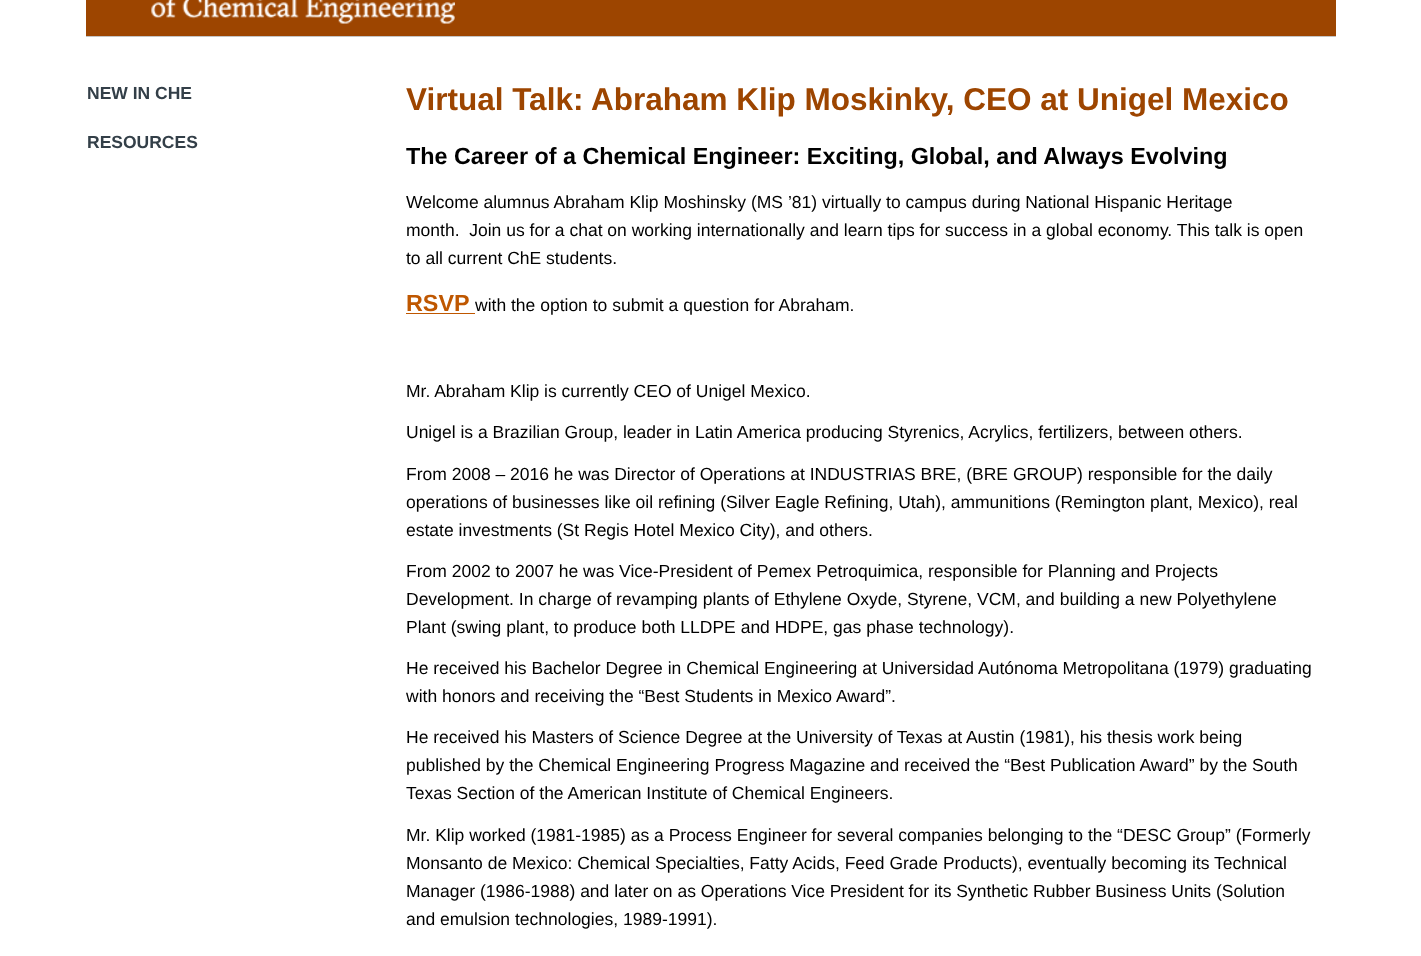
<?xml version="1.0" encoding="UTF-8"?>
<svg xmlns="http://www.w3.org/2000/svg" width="1421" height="956">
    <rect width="100%" height="100%" fill="#FFFFFF"/>
    <rect x="86" y="0" width="1250" height="36" fill="#9D4500"/>
    <image x="151" y="0" width="304" height="24" href="img_01.png"/>
    <rect x="86" y="36" width="1250" height="1" fill="#C4C4C4"/>
    <text x="87" y="99" font-family="Liberation Sans" font-size="17.5" font-weight="700" fill="#333F48">NEW IN CHE</text>
    <text x="87" y="148" font-family="Liberation Sans" font-size="17.5" font-weight="700" fill="#333F48">RESOURCES</text>
    <text x="406" y="110" font-family="Liberation Sans" font-size="31.5" font-weight="700" fill="#9D4500">Virtual Talk: Abraham Klip Moskinky, CEO at Unigel Mexico</text>
    <text x="406" y="164" font-family="Liberation Sans" font-size="23.35" font-weight="700" fill="#000000">The Career of a Chemical Engineer: Exciting, Global, and Always Evolving</text>
    <text font-family="Liberation Sans" font-size="17.5" fill="#000000" xml:space="preserve"><tspan x="406" y="208">Welcome alumnus Abraham Klip Moshinsky (MS ’81) virtually to campus during National Hispanic Heritage</tspan><tspan x="406" y="236">month.  Join us for a chat on working internationally and learn tips for success in a global economy. This talk is open</tspan><tspan x="406" y="264">to all current ChE students.</tspan></text>
    <text x="406" y="311" font-family="Liberation Sans" font-size="23.35" font-weight="700" fill="#BF5700">RSVP</text>
    <rect x="406" y="313" width="69" height="1" fill="#BF5700"/>
    <text x="475" y="311" font-family="Liberation Sans" font-size="17.5" fill="#000000">with the option to submit a question for Abraham.</text>
    <text x="406" y="397" font-family="Liberation Sans" font-size="17.5" fill="#000000">Mr. Abraham Klip is currently CEO of Unigel Mexico.</text>
    <text x="406" y="438" font-family="Liberation Sans" font-size="17.5" fill="#000000">Unigel is a Brazilian Group, leader in Latin America producing Styrenics, Acrylics, fertilizers, between others.</text>
    <text font-family="Liberation Sans" font-size="17.5" fill="#000000">
        <tspan x="406" y="480">From 2008 – 2016 he was Director of Operations at INDUSTRIAS BRE, (BRE GROUP) responsible for the daily</tspan>
        <tspan x="406" y="508">operations of businesses like oil refining (Silver Eagle Refining, Utah), ammunitions (Remington plant, Mexico), real</tspan>
        <tspan x="406" y="536">estate investments (St Regis Hotel Mexico City), and others.</tspan>
    </text>
    <text font-family="Liberation Sans" font-size="17.5" fill="#000000">
        <tspan x="406" y="577">From 2002 to 2007 he was Vice-President of Pemex Petroquimica, responsible for Planning and Projects</tspan>
        <tspan x="406" y="605">Development. In charge of revamping plants of Ethylene Oxyde, Styrene, VCM, and building a new Polyethylene</tspan>
        <tspan x="406" y="633">Plant (swing plant, to produce both LLDPE and HDPE, gas phase technology).</tspan>
    </text>
    <text font-family="Liberation Sans" font-size="17.5" fill="#000000">
        <tspan x="406" y="674">He received his Bachelor Degree in Chemical Engineering at Universidad Autónoma Metropolitana (1979) graduating</tspan>
        <tspan x="406" y="702">with honors and receiving the “Best Students in Mexico Award”.</tspan>
    </text>
    <text font-family="Liberation Sans" font-size="17.5" fill="#000000">
        <tspan x="406" y="743">He received his Masters of Science Degree at the University of Texas at Austin (1981), his thesis work being</tspan>
        <tspan x="406" y="771">published by the Chemical Engineering Progress Magazine and received the “Best Publication Award” by the South</tspan>
        <tspan x="406" y="799">Texas Section of the American Institute of Chemical Engineers.</tspan>
    </text>
    <text font-family="Liberation Sans" font-size="17.5" fill="#000000">
        <tspan x="406" y="841">Mr. Klip worked (1981-1985) as a Process Engineer for several companies belonging to the “DESC Group” (Formerly</tspan>
        <tspan x="406" y="869">Monsanto de Mexico: Chemical Specialties, Fatty Acids, Feed Grade Products), eventually becoming its Technical</tspan>
        <tspan x="406" y="897">Manager (1986-1988) and later on as Operations Vice President for its Synthetic Rubber Business Units (Solution</tspan>
        <tspan x="406" y="925">and emulsion technologies, 1989-1991).</tspan>
    </text>
</svg>
